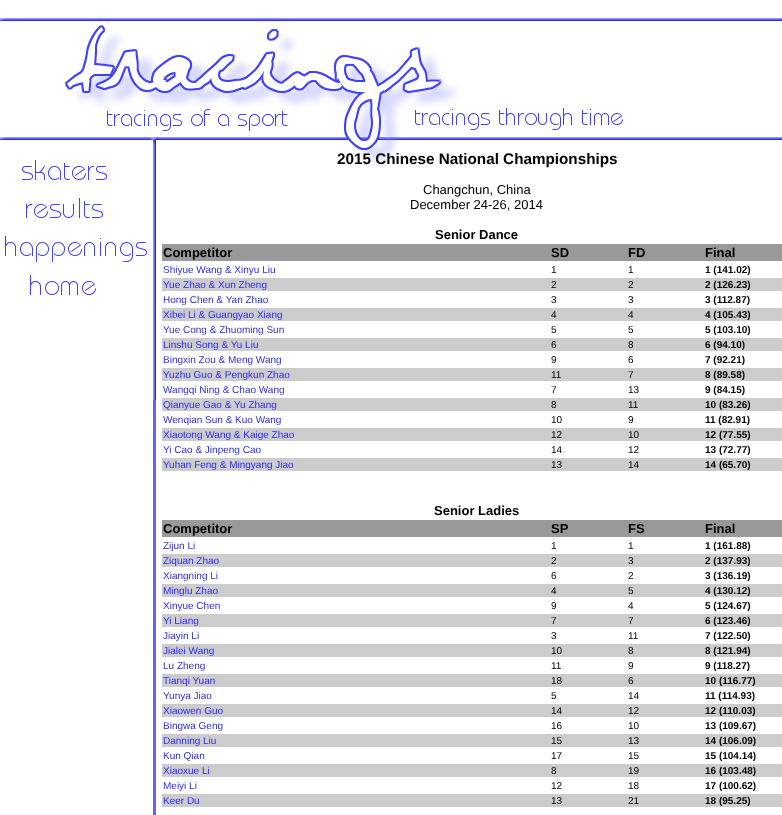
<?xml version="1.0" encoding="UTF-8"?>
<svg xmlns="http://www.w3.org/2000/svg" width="782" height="815">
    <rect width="100%" height="100%" fill="#FFFFFF"/>
    <rect x="153" y="400" width="3" height="415" fill="#6363FF"/>
    <image x="0" y="0" width="782" height="400" href="img_01.png"/>
    <text x="337" y="164" font-family="Liberation Sans" font-size="15.25" font-weight="700" fill="#000000">2015 Chinese National Championships</text>
    <text x="423" y="194" font-family="Liberation Sans" font-size="13" fill="#000000">Changchun, China</text>
    <text x="410" y="209" font-family="Liberation Sans" font-size="13" fill="#000000">December 24-26, 2014</text>
    <text x="435" y="239" font-family="Liberation Sans" font-size="13" font-weight="700" fill="#000000">Senior Dance</text>
    <rect x="162" y="244" width="620" height="17" fill="#999999"/>
    <text x="163" y="257" font-family="Liberation Sans" font-size="13" font-weight="700" fill="#000000">Competitor</text>
    <text x="551" y="257" font-family="Liberation Sans" font-size="13" font-weight="700" fill="#000000">SD</text>
    <text x="628" y="257" font-family="Liberation Sans" font-size="13" font-weight="700" fill="#000000">FD</text>
    <text x="705" y="257" font-family="Liberation Sans" font-size="13" font-weight="700" fill="#000000">Final</text>
    <text x="163" y="273" font-family="Liberation Sans" font-size="10" fill="#2D2DEF">Shiyue Wang &amp; Xinyu Liu</text>
    <text x="551" y="273" font-family="Liberation Sans" font-size="10" fill="#000000">1</text>
    <text x="628" y="273" font-family="Liberation Sans" font-size="10" fill="#000000">1</text>
    <text x="705" y="273" font-family="Liberation Sans" font-size="10" font-weight="700" fill="#000000">1 (141.02)</text>
    <rect x="162" y="278" width="620" height="13" fill="#CCCCCC"/>
    <text x="163" y="288" font-family="Liberation Sans" font-size="10" fill="#2D2DEF">Yue Zhao &amp; Xun Zheng</text>
    <text x="551" y="288" font-family="Liberation Sans" font-size="10" fill="#000000">2</text>
    <text x="628" y="288" font-family="Liberation Sans" font-size="10" fill="#000000">2</text>
    <text x="705" y="288" font-family="Liberation Sans" font-size="10" font-weight="700" fill="#000000">2 (126.23)</text>
    <text x="163" y="303" font-family="Liberation Sans" font-size="10" fill="#2D2DEF">Hong Chen &amp; Yan Zhao</text>
    <text x="551" y="303" font-family="Liberation Sans" font-size="10" fill="#000000">3</text>
    <text x="628" y="303" font-family="Liberation Sans" font-size="10" fill="#000000">3</text>
    <text x="705" y="303" font-family="Liberation Sans" font-size="10" font-weight="700" fill="#000000">3 (112.87)</text>
    <rect x="162" y="308" width="620" height="13" fill="#CCCCCC"/>
    <text x="163" y="318" font-family="Liberation Sans" font-size="10" fill="#2D2DEF">Xibei Li &amp; Guangyao Xiang</text>
    <text x="551" y="318" font-family="Liberation Sans" font-size="10" fill="#000000">4</text>
    <text x="628" y="318" font-family="Liberation Sans" font-size="10" fill="#000000">4</text>
    <text x="705" y="318" font-family="Liberation Sans" font-size="10" font-weight="700" fill="#000000">4 (105.43)</text>
    <text x="163" y="333" font-family="Liberation Sans" font-size="10" fill="#2D2DEF">Yue Cong &amp; Zhuoming Sun</text>
    <text x="551" y="333" font-family="Liberation Sans" font-size="10" fill="#000000">5</text>
    <text x="628" y="333" font-family="Liberation Sans" font-size="10" fill="#000000">5</text>
    <text x="705" y="333" font-family="Liberation Sans" font-size="10" font-weight="700" fill="#000000">5 (103.10)</text>
    <rect x="162" y="338" width="620" height="13" fill="#CCCCCC"/>
    <text x="163" y="348" font-family="Liberation Sans" font-size="10" fill="#2D2DEF">Linshu Song &amp; Yu Liu</text>
    <text x="551" y="348" font-family="Liberation Sans" font-size="10" fill="#000000">6</text>
    <text x="628" y="348" font-family="Liberation Sans" font-size="10" fill="#000000">8</text>
    <text x="705" y="348" font-family="Liberation Sans" font-size="10" font-weight="700" fill="#000000">6 (94.10)</text>
    <text x="163" y="363" font-family="Liberation Sans" font-size="10" fill="#2D2DEF">Bingxin Zou &amp; Meng Wang</text>
    <text x="551" y="363" font-family="Liberation Sans" font-size="10" fill="#000000">9</text>
    <text x="628" y="363" font-family="Liberation Sans" font-size="10" fill="#000000">6</text>
    <text x="705" y="363" font-family="Liberation Sans" font-size="10" font-weight="700" fill="#000000">7 (92.21)</text>
    <rect x="162" y="368" width="620" height="13" fill="#CCCCCC"/>
    <text x="163" y="378" font-family="Liberation Sans" font-size="10" fill="#2D2DEF">Yuzhu Guo &amp; Pengkun Zhao</text>
    <text x="551" y="378" font-family="Liberation Sans" font-size="10" fill="#000000">11</text>
    <text x="628" y="378" font-family="Liberation Sans" font-size="10" fill="#000000">7</text>
    <text x="705" y="378" font-family="Liberation Sans" font-size="10" font-weight="700" fill="#000000">8 (89.58)</text>
    <text x="163" y="393" font-family="Liberation Sans" font-size="10" fill="#2D2DEF">Wangqi Ning &amp; Chao Wang</text>
    <text x="551" y="393" font-family="Liberation Sans" font-size="10" fill="#000000">7</text>
    <text x="628" y="393" font-family="Liberation Sans" font-size="10" fill="#000000">13</text>
    <text x="705" y="393" font-family="Liberation Sans" font-size="10" font-weight="700" fill="#000000">9 (84.15)</text>
    <rect x="162" y="398" width="620" height="13" fill="#CCCCCC"/>
    <text x="163" y="408" font-family="Liberation Sans" font-size="10" fill="#2D2DEF">Qianyue Gao &amp; Yu Zhang</text>
    <text x="551" y="408" font-family="Liberation Sans" font-size="10" fill="#000000">8</text>
    <text x="628" y="408" font-family="Liberation Sans" font-size="10" fill="#000000">11</text>
    <text x="705" y="408" font-family="Liberation Sans" font-size="10" font-weight="700" fill="#000000">10 (83.26)</text>
    <text x="163" y="423" font-family="Liberation Sans" font-size="10" fill="#2D2DEF">Wenqian Sun &amp; Kuo Wang</text>
    <text x="551" y="423" font-family="Liberation Sans" font-size="10" fill="#000000">10</text>
    <text x="628" y="423" font-family="Liberation Sans" font-size="10" fill="#000000">9</text>
    <text x="705" y="423" font-family="Liberation Sans" font-size="10" font-weight="700" fill="#000000">11 (82.91)</text>
    <rect x="162" y="428" width="620" height="13" fill="#CCCCCC"/>
    <text x="163" y="438" font-family="Liberation Sans" font-size="10" fill="#2D2DEF">Xiaotong Wang &amp; Kaige Zhao</text>
    <text x="551" y="438" font-family="Liberation Sans" font-size="10" fill="#000000">12</text>
    <text x="628" y="438" font-family="Liberation Sans" font-size="10" fill="#000000">10</text>
    <text x="705" y="438" font-family="Liberation Sans" font-size="10" font-weight="700" fill="#000000">12 (77.55)</text>
    <text x="163" y="453" font-family="Liberation Sans" font-size="10" fill="#2D2DEF">Yi Cao &amp; Jinpeng Cao</text>
    <text x="551" y="453" font-family="Liberation Sans" font-size="10" fill="#000000">14</text>
    <text x="628" y="453" font-family="Liberation Sans" font-size="10" fill="#000000">12</text>
    <text x="705" y="453" font-family="Liberation Sans" font-size="10" font-weight="700" fill="#000000">13 (72.77)</text>
    <rect x="162" y="458" width="620" height="13" fill="#CCCCCC"/>
    <text x="163" y="468" font-family="Liberation Sans" font-size="10" fill="#2D2DEF">Yuhan Feng &amp; Mingyang Jiao</text>
    <text x="551" y="468" font-family="Liberation Sans" font-size="10" fill="#000000">13</text>
    <text x="628" y="468" font-family="Liberation Sans" font-size="10" fill="#000000">14</text>
    <text x="705" y="468" font-family="Liberation Sans" font-size="10" font-weight="700" fill="#000000">14 (65.70)</text>
    <text x="434" y="515" font-family="Liberation Sans" font-size="13" font-weight="700" fill="#000000">Senior Ladies</text>
    <rect x="162" y="520" width="620" height="17" fill="#999999"/>
    <text x="163" y="533" font-family="Liberation Sans" font-size="13" font-weight="700" fill="#000000">Competitor</text>
    <text x="551" y="533" font-family="Liberation Sans" font-size="13" font-weight="700" fill="#000000">SP</text>
    <text x="628" y="533" font-family="Liberation Sans" font-size="13" font-weight="700" fill="#000000">FS</text>
    <text x="705" y="533" font-family="Liberation Sans" font-size="13" font-weight="700" fill="#000000">Final</text>
    <text x="163" y="549" font-family="Liberation Sans" font-size="10" fill="#2D2DEF">Zijun Li</text>
    <text x="551" y="549" font-family="Liberation Sans" font-size="10" fill="#000000">1</text>
    <text x="628" y="549" font-family="Liberation Sans" font-size="10" fill="#000000">1</text>
    <text x="705" y="549" font-family="Liberation Sans" font-size="10" font-weight="700" fill="#000000">1 (161.88)</text>
    <rect x="162" y="554" width="620" height="13" fill="#CCCCCC"/>
    <text x="163" y="564" font-family="Liberation Sans" font-size="10" fill="#2D2DEF">Ziquan Zhao</text>
    <text x="551" y="564" font-family="Liberation Sans" font-size="10" fill="#000000">2</text>
    <text x="628" y="564" font-family="Liberation Sans" font-size="10" fill="#000000">3</text>
    <text x="705" y="564" font-family="Liberation Sans" font-size="10" font-weight="700" fill="#000000">2 (137.93)</text>
    <text x="163" y="579" font-family="Liberation Sans" font-size="10" fill="#2D2DEF">Xiangning Li</text>
    <text x="551" y="579" font-family="Liberation Sans" font-size="10" fill="#000000">6</text>
    <text x="628" y="579" font-family="Liberation Sans" font-size="10" fill="#000000">2</text>
    <text x="705" y="579" font-family="Liberation Sans" font-size="10" font-weight="700" fill="#000000">3 (136.19)</text>
    <rect x="162" y="584" width="620" height="13" fill="#CCCCCC"/>
    <text x="163" y="594" font-family="Liberation Sans" font-size="10" fill="#2D2DEF">Minglu Zhao</text>
    <text x="551" y="594" font-family="Liberation Sans" font-size="10" fill="#000000">4</text>
    <text x="628" y="594" font-family="Liberation Sans" font-size="10" fill="#000000">5</text>
    <text x="705" y="594" font-family="Liberation Sans" font-size="10" font-weight="700" fill="#000000">4 (130.12)</text>
    <text x="163" y="609" font-family="Liberation Sans" font-size="10" fill="#2D2DEF">Xinyue Chen</text>
    <text x="551" y="609" font-family="Liberation Sans" font-size="10" fill="#000000">9</text>
    <text x="628" y="609" font-family="Liberation Sans" font-size="10" fill="#000000">4</text>
    <text x="705" y="609" font-family="Liberation Sans" font-size="10" font-weight="700" fill="#000000">5 (124.67)</text>
    <rect x="162" y="614" width="620" height="13" fill="#CCCCCC"/>
    <text x="163" y="624" font-family="Liberation Sans" font-size="10" fill="#2D2DEF">Yi Liang</text>
    <text x="551" y="624" font-family="Liberation Sans" font-size="10" fill="#000000">7</text>
    <text x="628" y="624" font-family="Liberation Sans" font-size="10" fill="#000000">7</text>
    <text x="705" y="624" font-family="Liberation Sans" font-size="10" font-weight="700" fill="#000000">6 (123.46)</text>
    <text x="163" y="639" font-family="Liberation Sans" font-size="10" fill="#2D2DEF">Jiayin Li</text>
    <text x="551" y="639" font-family="Liberation Sans" font-size="10" fill="#000000">3</text>
    <text x="628" y="639" font-family="Liberation Sans" font-size="10" fill="#000000">11</text>
    <text x="705" y="639" font-family="Liberation Sans" font-size="10" font-weight="700" fill="#000000">7 (122.50)</text>
    <rect x="162" y="644" width="620" height="13" fill="#CCCCCC"/>
    <text x="163" y="654" font-family="Liberation Sans" font-size="10" fill="#2D2DEF">Jialei Wang</text>
    <text x="551" y="654" font-family="Liberation Sans" font-size="10" fill="#000000">10</text>
    <text x="628" y="654" font-family="Liberation Sans" font-size="10" fill="#000000">8</text>
    <text x="705" y="654" font-family="Liberation Sans" font-size="10" font-weight="700" fill="#000000">8 (121.94)</text>
    <text x="163" y="669" font-family="Liberation Sans" font-size="10" fill="#2D2DEF">Lu Zheng</text>
    <text x="551" y="669" font-family="Liberation Sans" font-size="10" fill="#000000">11</text>
    <text x="628" y="669" font-family="Liberation Sans" font-size="10" fill="#000000">9</text>
    <text x="705" y="669" font-family="Liberation Sans" font-size="10" font-weight="700" fill="#000000">9 (118.27)</text>
    <rect x="162" y="674" width="620" height="13" fill="#CCCCCC"/>
    <text x="163" y="684" font-family="Liberation Sans" font-size="10" fill="#2D2DEF">Tianqi Yuan</text>
    <text x="551" y="684" font-family="Liberation Sans" font-size="10" fill="#000000">18</text>
    <text x="628" y="684" font-family="Liberation Sans" font-size="10" fill="#000000">6</text>
    <text x="705" y="684" font-family="Liberation Sans" font-size="10" font-weight="700" fill="#000000">10 (116.77)</text>
    <text x="163" y="699" font-family="Liberation Sans" font-size="10" fill="#2D2DEF">Yunya Jiao</text>
    <text x="551" y="699" font-family="Liberation Sans" font-size="10" fill="#000000">5</text>
    <text x="628" y="699" font-family="Liberation Sans" font-size="10" fill="#000000">14</text>
    <text x="705" y="699" font-family="Liberation Sans" font-size="10" font-weight="700" fill="#000000">11 (114.93)</text>
    <rect x="162" y="704" width="620" height="13" fill="#CCCCCC"/>
    <text x="163" y="714" font-family="Liberation Sans" font-size="10" fill="#2D2DEF">Xiaowen Guo</text>
    <text x="551" y="714" font-family="Liberation Sans" font-size="10" fill="#000000">14</text>
    <text x="628" y="714" font-family="Liberation Sans" font-size="10" fill="#000000">12</text>
    <text x="705" y="714" font-family="Liberation Sans" font-size="10" font-weight="700" fill="#000000">12 (110.03)</text>
    <text x="163" y="729" font-family="Liberation Sans" font-size="10" fill="#2D2DEF">Bingwa Geng</text>
    <text x="551" y="729" font-family="Liberation Sans" font-size="10" fill="#000000">16</text>
    <text x="628" y="729" font-family="Liberation Sans" font-size="10" fill="#000000">10</text>
    <text x="705" y="729" font-family="Liberation Sans" font-size="10" font-weight="700" fill="#000000">13 (109.67)</text>
    <rect x="162" y="734" width="620" height="13" fill="#CCCCCC"/>
    <text x="163" y="744" font-family="Liberation Sans" font-size="10" fill="#2D2DEF">Danning Liu</text>
    <text x="551" y="744" font-family="Liberation Sans" font-size="10" fill="#000000">15</text>
    <text x="628" y="744" font-family="Liberation Sans" font-size="10" fill="#000000">13</text>
    <text x="705" y="744" font-family="Liberation Sans" font-size="10" font-weight="700" fill="#000000">14 (106.09)</text>
    <text x="163" y="759" font-family="Liberation Sans" font-size="10" fill="#2D2DEF">Kun Qian</text>
    <text x="551" y="759" font-family="Liberation Sans" font-size="10" fill="#000000">17</text>
    <text x="628" y="759" font-family="Liberation Sans" font-size="10" fill="#000000">15</text>
    <text x="705" y="759" font-family="Liberation Sans" font-size="10" font-weight="700" fill="#000000">15 (104.14)</text>
    <rect x="162" y="764" width="620" height="13" fill="#CCCCCC"/>
    <text x="163" y="774" font-family="Liberation Sans" font-size="10" fill="#2D2DEF">Xiaoxue Li</text>
    <text x="551" y="774" font-family="Liberation Sans" font-size="10" fill="#000000">8</text>
    <text x="628" y="774" font-family="Liberation Sans" font-size="10" fill="#000000">19</text>
    <text x="705" y="774" font-family="Liberation Sans" font-size="10" font-weight="700" fill="#000000">16 (103.48)</text>
    <text x="163" y="789" font-family="Liberation Sans" font-size="10" fill="#2D2DEF">Meiyi Li</text>
    <text x="551" y="789" font-family="Liberation Sans" font-size="10" fill="#000000">12</text>
    <text x="628" y="789" font-family="Liberation Sans" font-size="10" fill="#000000">18</text>
    <text x="705" y="789" font-family="Liberation Sans" font-size="10" font-weight="700" fill="#000000">17 (100.62)</text>
    <rect x="162" y="794" width="620" height="13" fill="#CCCCCC"/>
    <text x="163" y="804" font-family="Liberation Sans" font-size="10" fill="#2D2DEF">Keer Du</text>
    <text x="551" y="804" font-family="Liberation Sans" font-size="10" fill="#000000">13</text>
    <text x="628" y="804" font-family="Liberation Sans" font-size="10" fill="#000000">21</text>
    <text x="705" y="804" font-family="Liberation Sans" font-size="10" font-weight="700" fill="#000000">18 (95.25)</text>
</svg>
